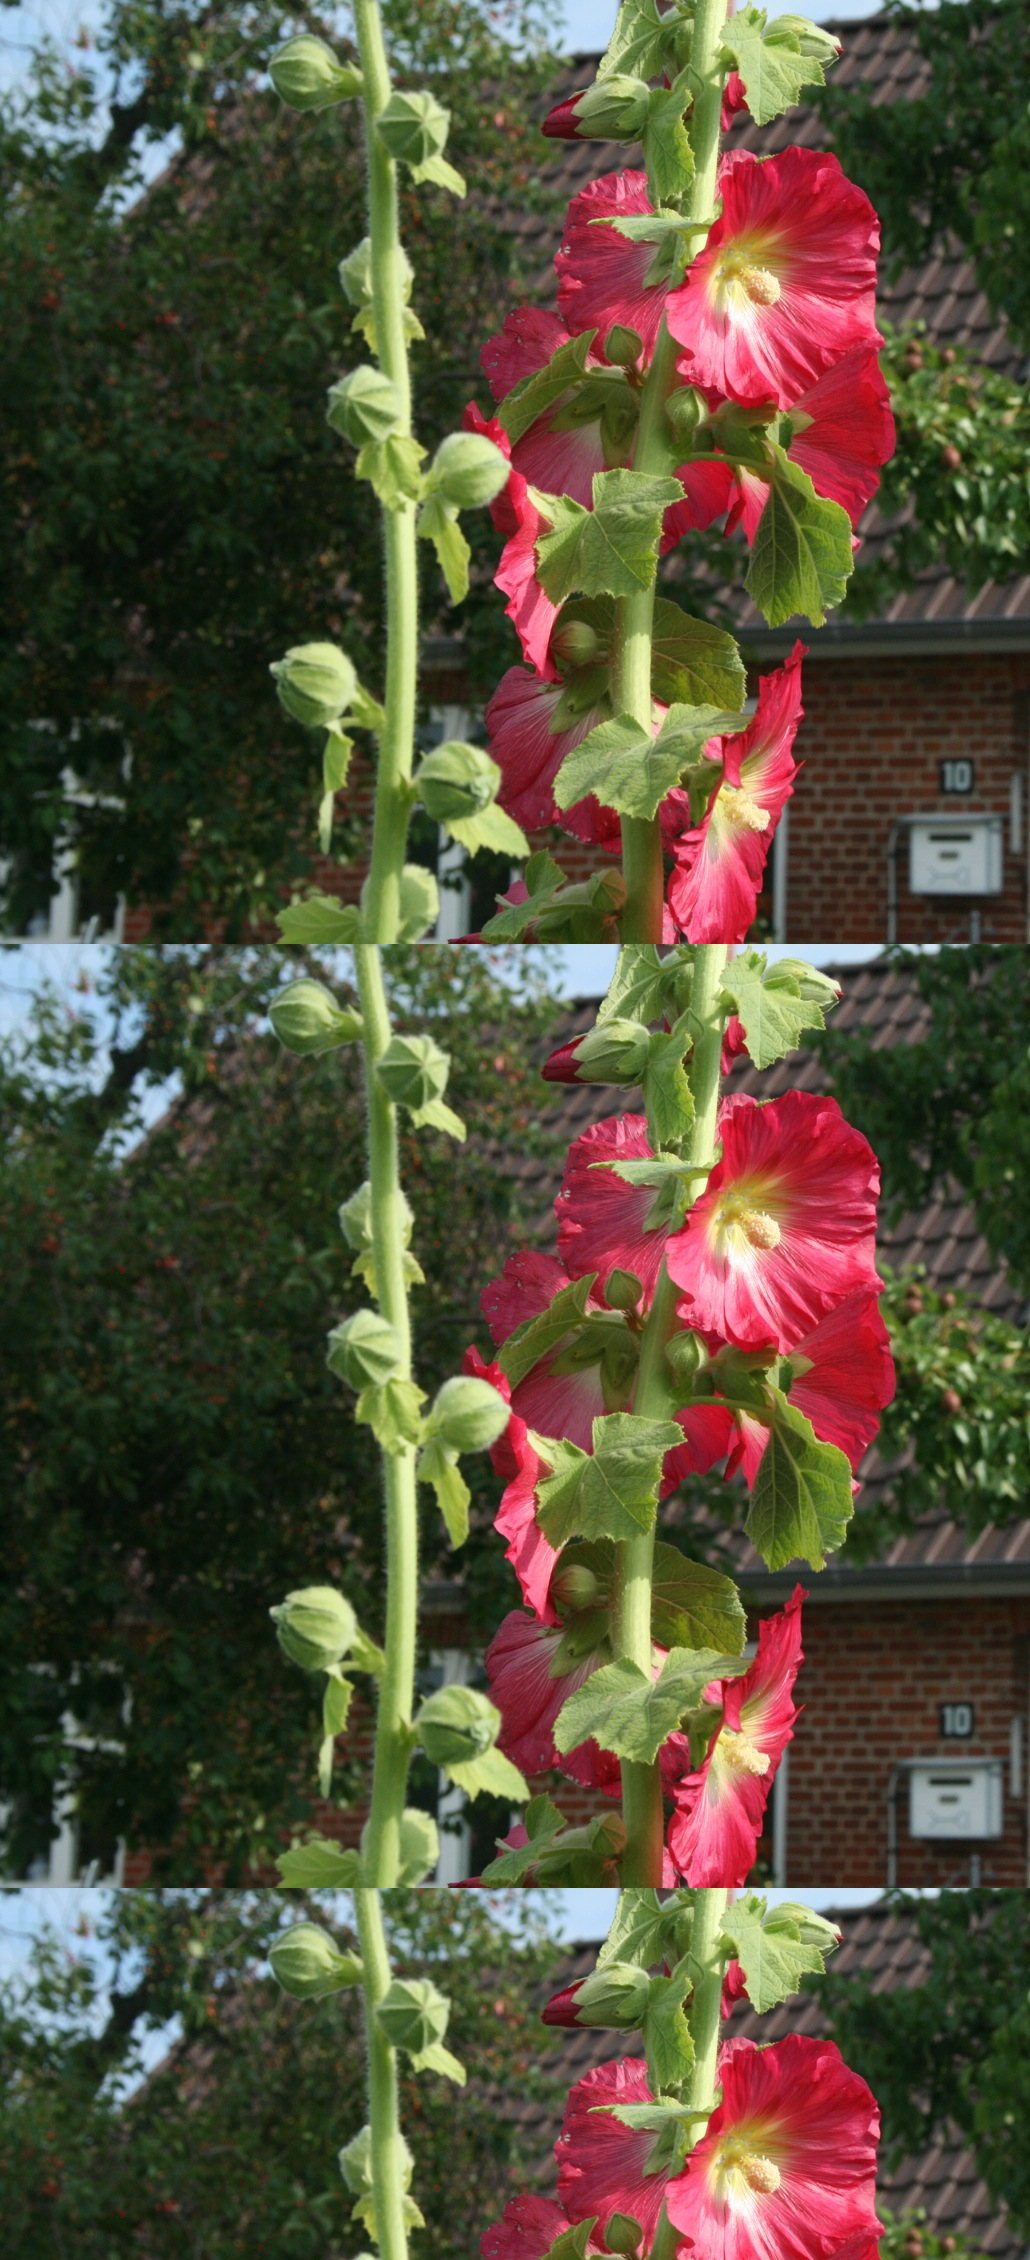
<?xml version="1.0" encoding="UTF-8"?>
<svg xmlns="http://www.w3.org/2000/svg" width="1030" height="2260">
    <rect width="100%" height="100%" fill="#FFFFFF"/>
    <image x="0" y="0" width="1030" height="2260" href="img_01.png"/>
</svg>
